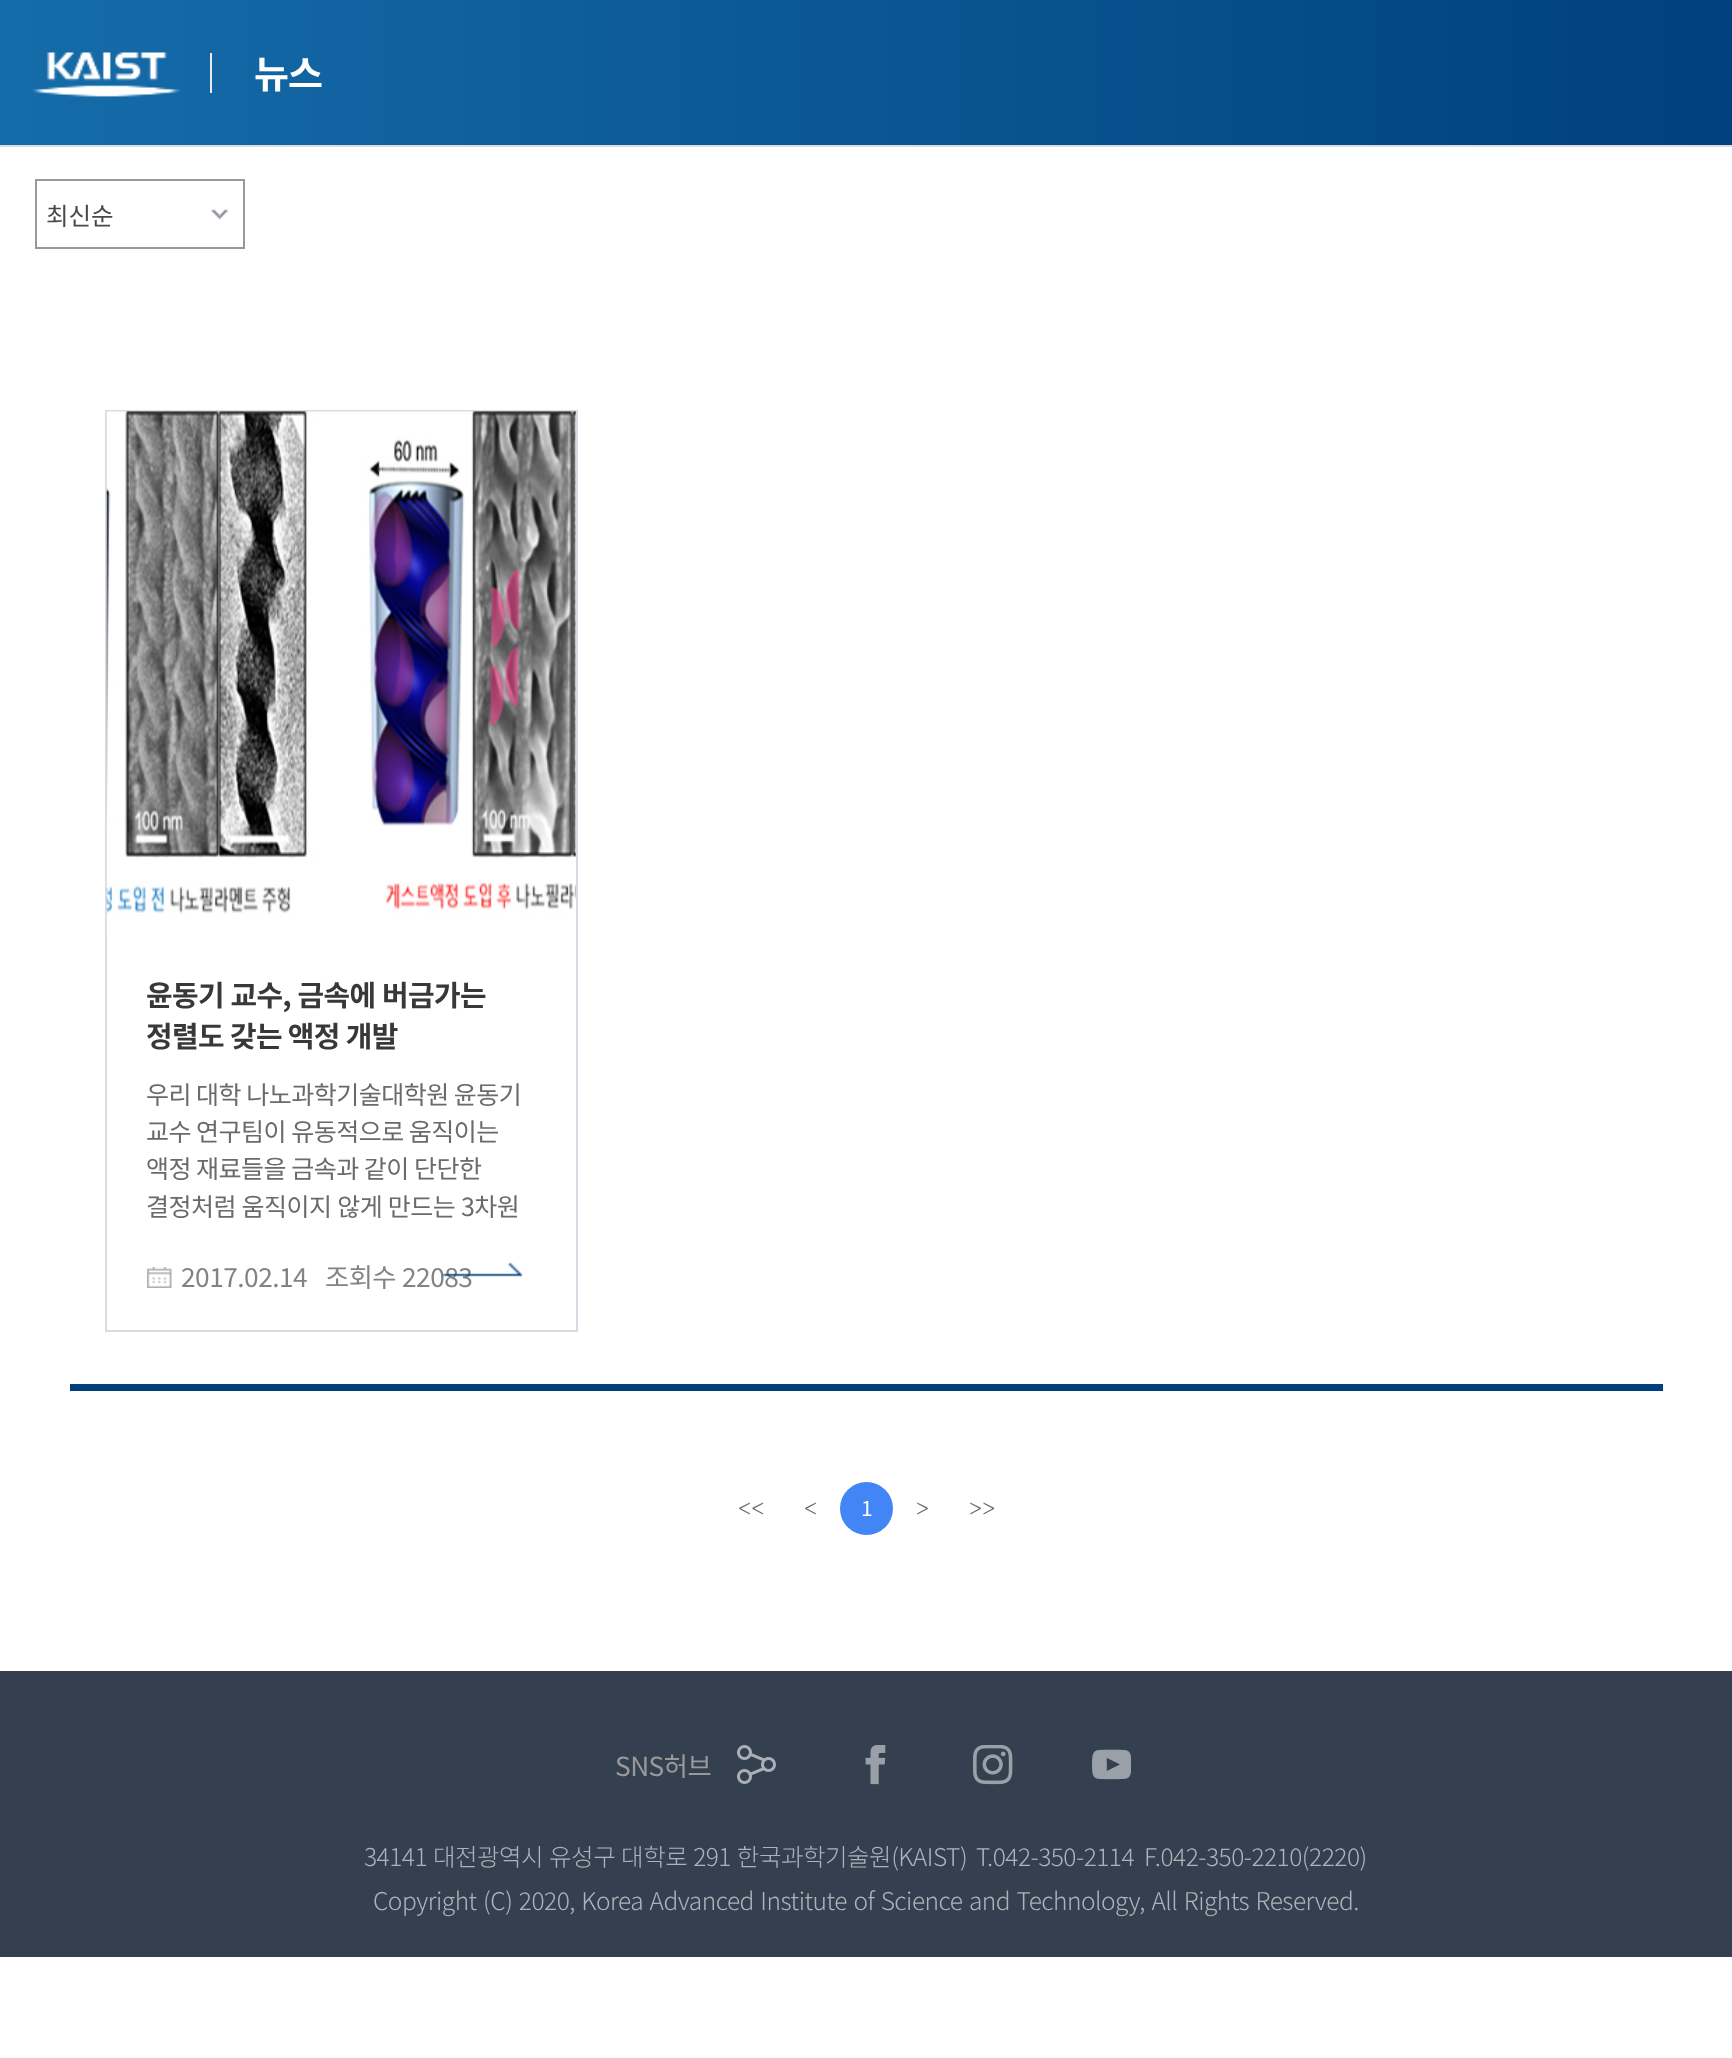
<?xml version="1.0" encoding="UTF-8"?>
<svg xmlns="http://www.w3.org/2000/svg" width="1732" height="2058">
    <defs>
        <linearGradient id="g1" gradientUnits="userSpaceOnUse" x1="0" y1="73" x2="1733" y2="73"><stop offset="0" stop-color="#156CA9"/><stop offset="1" stop-color="#00407F"/></linearGradient>
    </defs>
    <rect width="100%" height="100%" fill="#FFFFFF"/>
    <rect x="0" y="0" width="1732" height="145" fill="url(#g1)"/>
    <rect x="0" y="145" width="1732" height="2" fill="#DDDDDD"/>
    <image x="32" y="52" width="150" height="45" href="img_01.png"/>
    <rect x="210" y="53" width="2" height="40" fill="#EAEAEA"/>
    <text x="254" y="88" font-family="Noto Sans CJK KR" font-size="38" font-weight="700" letter-spacing="-1" fill="#FFFFFF">뉴스</text>
    <image x="211" y="209" width="17" height="11" href="img_02.png"/>
    <rect x="36" y="180" width="208" height="68" fill="none" stroke="#999999" stroke-width="2"/>
    <text x="46" y="225" font-family="Noto Sans CJK KR" font-size="24.5" fill="#494949">최신순</text>
    <rect x="106" y="411" width="471" height="920" fill="none" stroke="#D6DCE3" stroke-width="2"/>
    <image x="106" y="411" width="470" height="525" href="img_03.png"/>
    <text font-family="Noto Sans CJK KR" font-size="28.9" font-weight="700" letter-spacing="-0.6" fill="#363839">
        <tspan x="146" y="1006" word-spacing="0.5">윤동기 교수, 금속에 버금가는</tspan>
        <tspan x="146" y="1047">정렬도 갖는 액정 개발</tspan>
    </text>
    <text font-family="Noto Sans CJK KR" font-size="25" letter-spacing="-0.5" fill="#686A6B">
        <tspan x="146" y="1104">우리 대학 나노과학기술대학원 윤동기</tspan>
        <tspan x="146" y="1141">교수 연구팀이 유동적으로 움직이는</tspan>
        <tspan x="146" y="1178">액정 재료들을 금속과 같이 단단한</tspan>
        <tspan x="146" y="1216" word-spacing="0.5">결정처럼 움직이지 않게 만드는 3차원</tspan>
    </text>
    <image x="147" y="1267" width="25" height="21" href="img_04.png"/>
    <text x="181" y="1287" font-family="Noto Sans CJK KR" font-size="26.25" letter-spacing="-0.5" fill="#838383">2017.02.14</text>
    <text x="325" y="1287" font-family="Noto Sans CJK KR" font-size="26.25" letter-spacing="-0.5" fill="#838383">조회수</text>
    <text x="402" y="1287" font-family="Noto Sans CJK KR" font-size="26.25" letter-spacing="-0.5" fill="#838383">22083</text>
    <image x="442" y="1261" width="82" height="17" href="img_05.png"/>
    <rect x="70" y="1384" width="1593" height="7" fill="#00407F"/>
    <text x="738" y="1516" font-family="Dotum" font-size="21" fill="#686A6B">&lt;&lt;</text>
    <text x="804" y="1516" font-family="Dotum" font-size="21" fill="#686A6B">&lt;</text>
    <circle cx="866.5" cy="1508.5" r="26.5" fill="#4285F4"/>
    <text x="861" y="1516" font-family="Noto Sans CJK KR" font-size="21" fill="#FFFFFF">1</text>
    <text x="916" y="1516" font-family="Dotum" font-size="21" fill="#686A6B">&gt;</text>
    <text x="969" y="1516" font-family="Dotum" font-size="21" fill="#686A6B">&gt;&gt;</text>
    <rect x="0" y="1671" width="1732" height="286" fill="#344050"/>
    <text x="615" y="1776" font-family="Noto Sans CJK KR" font-size="26.25" letter-spacing="-0.5" fill="#999999">SNS허브</text>
    <image x="737" y="1745" width="39" height="39" href="img_06.png"/>
    <image x="865" y="1745" width="21" height="40" href="img_07.png"/>
    <image x="973" y="1745" width="40" height="40" href="img_08.png"/>
    <image x="1092" y="1749" width="39" height="31" href="img_09.png"/>
    <text x="364" y="1866" word-spacing="1" font-family="Noto Sans CJK KR" font-size="24.5" font-weight="300" letter-spacing="-0.5" fill="#AEB3B9">34141 대전광역시 유성구 대학로 291 한국과학기술원(KAIST)</text>
    <text x="976" y="1866" font-family="Noto Sans CJK KR" font-size="24.5" font-weight="300" letter-spacing="-0.5" fill="#AEB3B9">T.042-350-2114</text>
    <text x="1144" y="1866" font-family="Noto Sans CJK KR" font-size="24.5" font-weight="300" letter-spacing="-0.5" fill="#AEB3B9">F.042-350-2210(2220)</text>
    <text x="373" y="1910" word-spacing="1.5" font-family="Noto Sans CJK KR" font-size="24.5" font-weight="300" letter-spacing="-0.5" fill="#AEB3B9">Copyright (C) 2020, Korea Advanced Institute of Science and Technology, All Rights Reserved.</text>
</svg>
